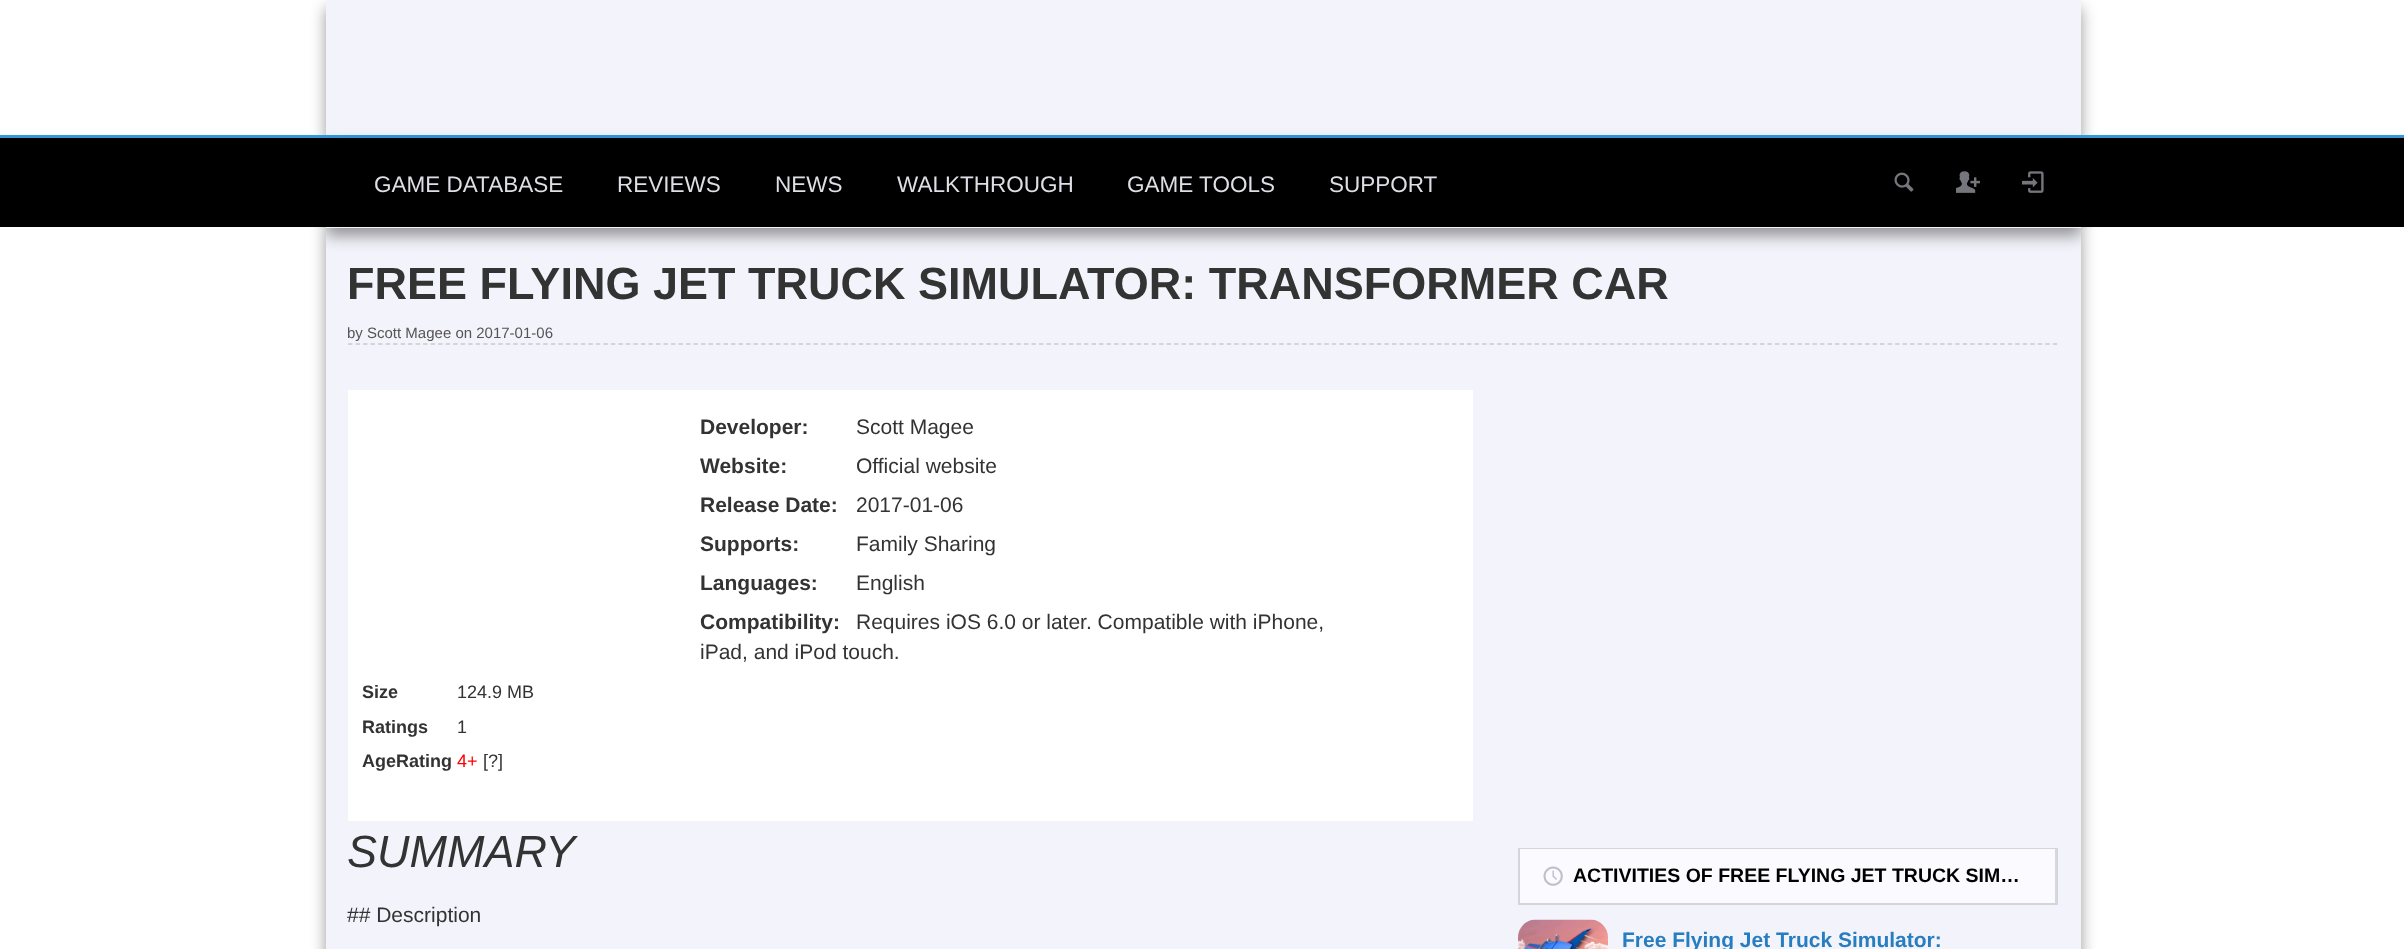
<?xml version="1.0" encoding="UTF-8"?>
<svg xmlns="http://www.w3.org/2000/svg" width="2404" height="949">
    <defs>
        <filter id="blur1" x="-50%" y="-200%" width="200%" height="500%"><feGaussianBlur stdDeviation="7.5"/></filter>
        <clipPath id="clip1"><path d="M 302 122 H 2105 V 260 H 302 Z M 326 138 H 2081 V 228 H 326 Z" clip-rule="evenodd"/></clipPath>
    </defs>
    <rect width="100%" height="100%" fill="#FFFFFF"/>
    <rect x="326" y="8" width="1755" height="135" fill="#000000" fill-opacity="0.4" filter="url(#blur1)"/>
    <rect x="326" y="0" width="1755" height="135" fill="#F3F3FB"/>
    <rect x="326" y="236" width="1755" height="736" fill="#000000" fill-opacity="0.4" filter="url(#blur1)"/>
    <rect x="0" y="138" width="2404" height="89" fill="#000000"/>
    <rect x="0" y="135" width="2404" height="3" fill="#3498DB"/>
    <rect x="326" y="228" width="1755" height="721" fill="#F3F3FB"/>
    <g clip-path="url(#clip1)">
        <rect x="326" y="146" width="1755" height="90" fill="#000000" fill-opacity="0.4" filter="url(#blur1)"/>
    </g>
    <text x="374" y="192" font-family="Liberation Sans" font-size="22.5" fill="#DEDEE6">GAME DATABASE</text>
    <text x="617" y="192" font-family="Liberation Sans" font-size="22.5" fill="#DEDEE6">REVIEWS</text>
    <text x="775" y="192" font-family="Liberation Sans" font-size="22.5" fill="#DEDEE6">NEWS</text>
    <text x="897" y="192" font-family="Liberation Sans" font-size="22.5" fill="#DEDEE6">WALKTHROUGH</text>
    <text x="1127" y="192" font-family="Liberation Sans" font-size="22.5" fill="#DEDEE6">GAME TOOLS</text>
    <text x="1329" y="192" font-family="Liberation Sans" font-size="22.5" fill="#DEDEE6">SUPPORT</text>
    <image x="1894" y="172" width="20" height="20" href="img_01.png"/>
    <image x="1956" y="171" width="24" height="22" href="img_02.png"/>
    <image x="2022" y="171" width="22" height="22" href="img_03.png"/>
    <path d="M 348 344 H 2058" fill="none" stroke="#CCCCCC" stroke-width="1.5" stroke-dasharray="4.5 3.01"/>
    <text x="347" y="299" font-family="Liberation Sans" font-size="45" font-weight="700" fill="#333333">FREE FLYING JET TRUCK SIMULATOR: TRANSFORMER CAR</text>
    <text x="347" y="338" font-family="Liberation Sans" font-size="15" fill="#555555">by Scott Magee on 2017-01-06</text>
    <rect x="348" y="390" width="1125" height="431" fill="#FFFFFF"/>
    <text x="700" y="434" font-family="Liberation Sans" font-size="21" font-weight="700" fill="#333333">Developer:</text>
    <text x="856" y="434" font-family="Liberation Sans" font-size="21" fill="#333333">Scott Magee</text>
    <text x="700" y="473" font-family="Liberation Sans" font-size="21" font-weight="700" fill="#333333">Website:</text>
    <text x="856" y="473" font-family="Liberation Sans" font-size="21" fill="#333333">Official website</text>
    <text x="700" y="512" font-family="Liberation Sans" font-size="21" font-weight="700" fill="#333333">Release Date:</text>
    <text x="856" y="512" font-family="Liberation Sans" font-size="21" fill="#333333">2017-01-06</text>
    <text x="700" y="551" font-family="Liberation Sans" font-size="21" font-weight="700" fill="#333333">Supports:</text>
    <text x="856" y="551" font-family="Liberation Sans" font-size="21" fill="#333333">Family Sharing</text>
    <text x="700" y="590" font-family="Liberation Sans" font-size="21" font-weight="700" fill="#333333">Languages:</text>
    <text x="856" y="590" font-family="Liberation Sans" font-size="21" fill="#333333">English</text>
    <text x="700" y="629" font-family="Liberation Sans" font-size="21" font-weight="700" fill="#333333">Compatibility:</text>
    <text x="856" y="629" font-family="Liberation Sans" font-size="21" fill="#333333">Requires iOS 6.0 or later. Compatible with iPhone,</text>
    <text x="700" y="659" font-family="Liberation Sans" font-size="21" fill="#333333">iPad, and iPod touch.</text>
    <text x="362" y="698" font-family="Liberation Sans" font-size="18" font-weight="700" fill="#333333">Size</text>
    <text x="457" y="698" font-family="Liberation Sans" font-size="18" fill="#333333">124.9 MB</text>
    <text x="362" y="733" font-family="Liberation Sans" font-size="18" font-weight="700" fill="#333333">Ratings</text>
    <text x="457" y="733" font-family="Liberation Sans" font-size="18" fill="#333333">1</text>
    <text x="362" y="767" font-family="Liberation Sans" font-size="18" font-weight="700" fill="#333333">AgeRating</text>
    <text x="457" y="767" font-family="Liberation Sans" font-size="18" fill="#FF0000">4+</text>
    <text x="483" y="767" font-family="Liberation Sans" font-size="18" fill="#333333">[?]</text>
    <text x="347" y="867" font-family="Liberation Sans" font-size="45" font-style="italic" fill="#333333">SUMMARY</text>
    <text x="347" y="922" font-family="Liberation Sans" font-size="21" fill="#333333">## Description</text>
    <rect x="1519" y="849" width="538" height="55" fill="none" stroke="#D4D4DB" stroke-width="2"/>
    <rect x="1520" y="849" width="535" height="54" fill="#FAFAFF"/>
    <rect x="2055" y="849" width="2" height="54" fill="#D7D8DF"/>
    <image x="1543" y="866" width="20" height="20" href="img_04.png"/>
    <text x="1573" y="882" font-family="Liberation Sans" font-size="19.5" font-weight="700" fill="#000000">ACTIVITIES OF FREE FLYING JET TRUCK SIM…</text>
    <image x="1518" y="919" width="90" height="30" href="img_05.png"/>
    <text x="1622" y="947" font-family="Liberation Sans" font-size="21" font-weight="700" fill="#267DC0">Free Flying Jet Truck Simulator:</text>
</svg>
